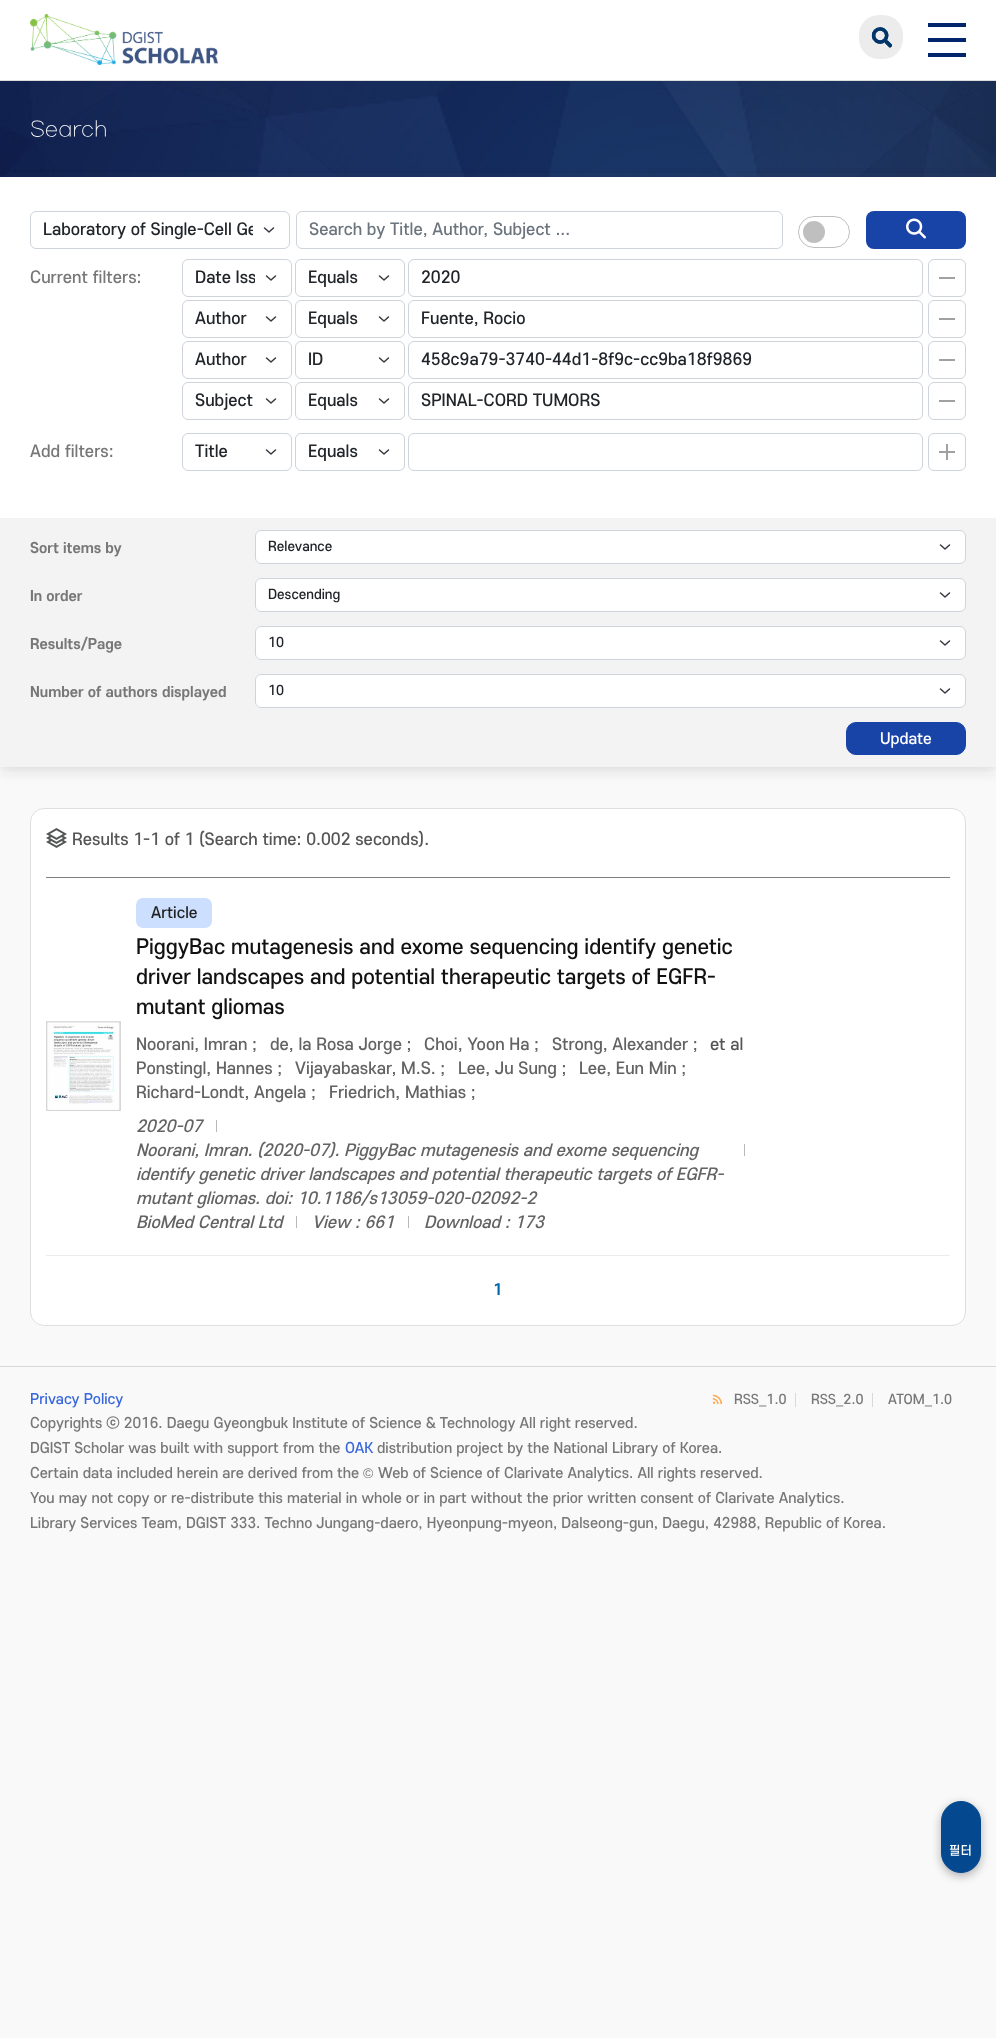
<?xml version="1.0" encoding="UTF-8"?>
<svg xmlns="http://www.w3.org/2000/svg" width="996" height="2038">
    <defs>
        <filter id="blur1" x="-50%" y="-200%" width="200%" height="500%"><feGaussianBlur stdDeviation="7"/></filter>
        <clipPath id="clip1"><rect x="43" y="218" width="210" height="24"/></clipPath>
        <clipPath id="clip2"><rect x="195" y="266" width="60" height="24"/></clipPath>
        <filter id="blur2" x="-50%" y="-200%" width="200%" height="500%"><feGaussianBlur stdDeviation="5"/></filter>
    </defs>
    <rect width="100%" height="100%" fill="#F9F9F9"/>
    <rect x="0" y="0" width="996" height="80" fill="#FFFFFF"/>
    <rect x="0" y="80" width="996" height="1" fill="#DDDDDD"/>
    <image x="30" y="14" width="188" height="51" href="img_01.png"/>
    <rect x="859" y="15" width="44" height="44" rx="20" fill="#ECECEC"/>
    <image x="871" y="27" width="21" height="21" href="img_02.png"/>
    <rect x="928" y="23" width="38" height="4" fill="#00256C"/>
    <rect x="928" y="38" width="38" height="4" fill="#00256C"/>
    <rect x="928" y="53" width="38" height="4" fill="#00256C"/>
    <image x="0" y="81" width="996" height="96" href="img_03.png"/>
    <text x="30" y="135" font-family="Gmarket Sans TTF" font-size="20" font-weight="300" fill="#FFFFFF">Search</text>
    <rect x="0" y="179" width="996" height="590" fill="#484848" fill-opacity="0.2" filter="url(#blur1)"/>
    <rect x="0" y="177" width="996" height="341" fill="#FFFFFF"/>
    <path d="M 264.5 228 L 269 232 L 273.5 228" fill="none" stroke="#343A40" stroke-width="1.5" stroke-linecap="round" stroke-linejoin="round"/>
    <rect x="30.5" y="211.5" width="259" height="37" rx="5.5" fill="none" stroke="#CED4DA"/>
    <g clip-path="url(#clip1)">
        <text x="43" y="235" font-family="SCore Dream" font-size="16" font-weight="500" fill="#212529">Laboratory of Single-Cell Ge</text>
    </g>
    <rect x="296.5" y="211.5" width="486" height="37" rx="5.5" fill="none" stroke="#CED4DA"/>
    <text x="309" y="235" font-family="SCore Dream" font-size="16" font-weight="500" fill="#6C757D">Search by Title, Author, Subject ...</text>
    <circle cx="814" cy="232" r="11" fill="#BFBFBF"/>
    <rect x="798.5" y="216.5" width="51" height="31" rx="15.5" fill="none" stroke="#BFBFBF"/>
    <rect x="866" y="211" width="100" height="38" rx="8" fill="#1843A7"/>
    <image x="906" y="218" width="20" height="21" href="img_04.png"/>
    <text x="30" y="283" font-family="SCore Dream" font-size="16" font-weight="500" fill="#777777">Current filters:</text>
    <path d="M 266.5 276 L 271 280 L 275.5 276" fill="none" stroke="#343A40" stroke-width="1.5" stroke-linecap="round" stroke-linejoin="round"/>
    <rect x="182.5" y="259.5" width="109" height="37" rx="5.5" fill="none" stroke="#CED4DA"/>
    <g clip-path="url(#clip2)">
        <text x="195" y="283" font-family="SCore Dream" font-size="16" font-weight="500" fill="#212529">Date Iss</text>
    </g>
    <path d="M 379.5 276 L 384 280 L 388.5 276" fill="none" stroke="#343A40" stroke-width="1.5" stroke-linecap="round" stroke-linejoin="round"/>
    <rect x="295.5" y="259.5" width="109" height="37" rx="5.5" fill="none" stroke="#CED4DA"/>
    <text x="308" y="283" font-family="SCore Dream" font-size="16" font-weight="500" fill="#212529">Equals</text>
    <rect x="408.5" y="259.5" width="514" height="37" rx="5.5" fill="none" stroke="#CED4DA"/>
    <text x="421" y="283" font-family="SCore Dream" font-size="16" font-weight="500" fill="#212529">2020</text>
    <rect x="939" y="277" width="16" height="2" fill="#A1A1A1"/>
    <rect x="928.5" y="259.5" width="37" height="37" rx="5.5" fill="none" stroke="#CED4DA"/>
    <path d="M 266.5 317 L 271 321 L 275.5 317" fill="none" stroke="#343A40" stroke-width="1.5" stroke-linecap="round" stroke-linejoin="round"/>
    <rect x="182.5" y="300.5" width="109" height="37" rx="5.5" fill="none" stroke="#CED4DA"/>
    <text x="195" y="324" font-family="SCore Dream" font-size="16" font-weight="500" fill="#212529">Author</text>
    <path d="M 379.5 317 L 384 321 L 388.5 317" fill="none" stroke="#343A40" stroke-width="1.5" stroke-linecap="round" stroke-linejoin="round"/>
    <rect x="295.5" y="300.5" width="109" height="37" rx="5.5" fill="none" stroke="#CED4DA"/>
    <text x="308" y="324" font-family="SCore Dream" font-size="16" font-weight="500" fill="#212529">Equals</text>
    <rect x="408.5" y="300.5" width="514" height="37" rx="5.5" fill="none" stroke="#CED4DA"/>
    <text x="421" y="324" font-family="SCore Dream" font-size="16" font-weight="500" fill="#212529">Fuente, Rocio</text>
    <rect x="939" y="318" width="16" height="2" fill="#A1A1A1"/>
    <rect x="928.5" y="300.5" width="37" height="37" rx="5.5" fill="none" stroke="#CED4DA"/>
    <path d="M 266.5 358 L 271 362 L 275.5 358" fill="none" stroke="#343A40" stroke-width="1.5" stroke-linecap="round" stroke-linejoin="round"/>
    <rect x="182.5" y="341.5" width="109" height="37" rx="5.5" fill="none" stroke="#CED4DA"/>
    <text x="195" y="365" font-family="SCore Dream" font-size="16" font-weight="500" fill="#212529">Author</text>
    <path d="M 379.5 358 L 384 362 L 388.5 358" fill="none" stroke="#343A40" stroke-width="1.5" stroke-linecap="round" stroke-linejoin="round"/>
    <rect x="295.5" y="341.5" width="109" height="37" rx="5.5" fill="none" stroke="#CED4DA"/>
    <text x="308" y="365" font-family="SCore Dream" font-size="16" font-weight="500" fill="#212529">ID</text>
    <rect x="408.5" y="341.5" width="514" height="37" rx="5.5" fill="none" stroke="#CED4DA"/>
    <text x="421" y="365" font-family="SCore Dream" font-size="16" font-weight="500" fill="#212529">458c9a79-3740-44d1-8f9c-cc9ba18f9869</text>
    <rect x="939" y="359" width="16" height="2" fill="#A1A1A1"/>
    <rect x="928.5" y="341.5" width="37" height="37" rx="5.5" fill="none" stroke="#CED4DA"/>
    <path d="M 266.5 399 L 271 403 L 275.5 399" fill="none" stroke="#343A40" stroke-width="1.5" stroke-linecap="round" stroke-linejoin="round"/>
    <rect x="182.5" y="382.5" width="109" height="37" rx="5.5" fill="none" stroke="#CED4DA"/>
    <text x="195" y="406" font-family="SCore Dream" font-size="16" font-weight="500" fill="#212529">Subject</text>
    <path d="M 379.5 399 L 384 403 L 388.5 399" fill="none" stroke="#343A40" stroke-width="1.5" stroke-linecap="round" stroke-linejoin="round"/>
    <rect x="295.5" y="382.5" width="109" height="37" rx="5.5" fill="none" stroke="#CED4DA"/>
    <text x="308" y="406" font-family="SCore Dream" font-size="16" font-weight="500" fill="#212529">Equals</text>
    <rect x="408.5" y="382.5" width="514" height="37" rx="5.5" fill="none" stroke="#CED4DA"/>
    <text x="421" y="406" font-family="SCore Dream" font-size="16" font-weight="500" fill="#212529">SPINAL-CORD TUMORS</text>
    <rect x="939" y="400" width="16" height="2" fill="#A1A1A1"/>
    <rect x="928.5" y="382.5" width="37" height="37" rx="5.5" fill="none" stroke="#CED4DA"/>
    <text x="30" y="457" font-family="SCore Dream" font-size="16" font-weight="500" fill="#777777">Add filters:</text>
    <path d="M 266.5 450 L 271 454 L 275.5 450" fill="none" stroke="#343A40" stroke-width="1.5" stroke-linecap="round" stroke-linejoin="round"/>
    <rect x="182.5" y="433.5" width="109" height="37" rx="5.5" fill="none" stroke="#CED4DA"/>
    <text x="195" y="457" font-family="SCore Dream" font-size="16" font-weight="500" fill="#212529">Title</text>
    <path d="M 379.5 450 L 384 454 L 388.5 450" fill="none" stroke="#343A40" stroke-width="1.5" stroke-linecap="round" stroke-linejoin="round"/>
    <rect x="295.5" y="433.5" width="109" height="37" rx="5.5" fill="none" stroke="#CED4DA"/>
    <text x="308" y="457" font-family="SCore Dream" font-size="16" font-weight="500" fill="#212529">Equals</text>
    <rect x="408.5" y="433.5" width="514" height="37" rx="5.5" fill="none" stroke="#CED4DA"/>
    <image x="939" y="444" width="16" height="16" href="img_05.png"/>
    <rect x="928.5" y="433.5" width="37" height="37" rx="5.5" fill="none" stroke="#CED4DA"/>
    <rect x="0" y="518" width="996" height="249" fill="#F3F3F3"/>
    <text x="30" y="553" font-family="SCore Dream" font-size="14" font-weight="700" fill="#777777">Sort items by</text>
    <rect x="255" y="530" width="711" height="34" rx="6" fill="#FFFFFF"/>
    <path d="M 940.5 545 L 945 549 L 949.5 545" fill="none" stroke="#343A40" stroke-width="1.5" stroke-linecap="round" stroke-linejoin="round"/>
    <rect x="255.5" y="530.5" width="710" height="33" rx="5.5" fill="none" stroke="#CED4DA"/>
    <text x="268" y="551" font-family="SCore Dream" font-size="13" font-weight="500" fill="#212529">Relevance</text>
    <text x="30" y="601" font-family="SCore Dream" font-size="14" font-weight="700" fill="#777777">In order</text>
    <rect x="255" y="578" width="711" height="34" rx="6" fill="#FFFFFF"/>
    <path d="M 940.5 593 L 945 597 L 949.5 593" fill="none" stroke="#343A40" stroke-width="1.5" stroke-linecap="round" stroke-linejoin="round"/>
    <rect x="255.5" y="578.5" width="710" height="33" rx="5.5" fill="none" stroke="#CED4DA"/>
    <text x="268" y="599" font-family="SCore Dream" font-size="13" font-weight="500" fill="#212529">Descending</text>
    <text x="30" y="649" font-family="SCore Dream" font-size="14" font-weight="700" fill="#777777">Results/Page</text>
    <rect x="255" y="626" width="711" height="34" rx="6" fill="#FFFFFF"/>
    <path d="M 940.5 641 L 945 645 L 949.5 641" fill="none" stroke="#343A40" stroke-width="1.5" stroke-linecap="round" stroke-linejoin="round"/>
    <rect x="255.5" y="626.5" width="710" height="33" rx="5.5" fill="none" stroke="#CED4DA"/>
    <text x="268" y="647" font-family="SCore Dream" font-size="13" font-weight="500" fill="#212529">10</text>
    <text x="30" y="697" font-family="SCore Dream" font-size="14" font-weight="700" fill="#777777">Number of authors displayed</text>
    <rect x="255" y="674" width="711" height="34" rx="6" fill="#FFFFFF"/>
    <path d="M 940.5 689 L 945 693 L 949.5 689" fill="none" stroke="#343A40" stroke-width="1.5" stroke-linecap="round" stroke-linejoin="round"/>
    <rect x="255.5" y="674.5" width="710" height="33" rx="5.5" fill="none" stroke="#CED4DA"/>
    <text x="268" y="695" font-family="SCore Dream" font-size="13" font-weight="500" fill="#212529">10</text>
    <rect x="846.5" y="722.5" width="119" height="32" rx="9.5" fill="#1843A7" stroke="#1843A7"/>
    <text x="880" y="744" font-family="SCore Dream" font-size="15" font-weight="500" fill="#FFFFFF">Update</text>
    <rect x="30.5" y="808.5" width="935" height="517" rx="13.5" fill="#FFFFFF" stroke="#DFDFDF"/>
    <rect x="46" y="877" width="904" height="1" fill="#7E7E7E"/>
    <image x="46" y="828" width="21" height="20" href="img_06.png"/>
    <text x="72" y="845" font-family="SCore Dream" font-size="16" font-weight="500" fill="#555555">Results 1-1 of 1 (Search time: 0.002 seconds).</text>
    <rect x="46" y="1255" width="904" height="1" fill="#ECECEC"/>
    <rect x="136" y="898" width="76" height="30" rx="7" fill="#CCDFFF"/>
    <text x="151" y="918" font-family="SCore Dream" font-size="15" font-weight="500" fill="#222222">Article</text>
    <text font-family="SCore Dream" font-size="20" font-weight="500" fill="#111111">
        <tspan x="136" y="954">PiggyBac mutagenesis and exome sequencing identify genetic</tspan>
        <tspan x="136" y="984">driver landscapes and potential therapeutic targets of EGFR-</tspan>
        <tspan x="136" y="1014">mutant gliomas</tspan>
    </text>
    <rect x="46.5" y="1021.5" width="74" height="89" fill="none" stroke="#DDDDDD"/>
    <image x="46" y="1022" width="75" height="89" href="img_07.png"/>
    <text x="136" y="1050" font-family="SCore Dream" font-size="16" font-weight="500" fill="#636363">Noorani, Imran ;</text>
    <text x="270" y="1050" font-family="SCore Dream" font-size="16" font-weight="500" fill="#636363">de, la Rosa Jorge ;</text>
    <text x="424" y="1050" font-family="SCore Dream" font-size="16" font-weight="500" fill="#636363">Choi, Yoon Ha ;</text>
    <text x="552" y="1050" font-family="SCore Dream" font-size="16" font-weight="500" fill="#636363">Strong, Alexander ;</text>
    <text x="710" y="1050" font-family="SCore Dream" font-size="16" font-weight="500" fill="#555555">et al</text>
    <text x="136" y="1074" font-family="SCore Dream" font-size="16" font-weight="500" fill="#636363">Ponstingl, Hannes ;</text>
    <text x="295" y="1074" font-family="SCore Dream" font-size="16" font-weight="500" fill="#636363">Vijayabaskar, M.S. ;</text>
    <text x="458" y="1074" font-family="SCore Dream" font-size="16" font-weight="500" fill="#636363">Lee, Ju Sung ;</text>
    <text x="579" y="1074" font-family="SCore Dream" font-size="16" font-weight="500" fill="#636363">Lee, Eun Min ;</text>
    <text x="136" y="1098" font-family="SCore Dream" font-size="16" font-weight="500" fill="#636363">Richard-Londt, Angela ;</text>
    <text x="329" y="1098" font-family="SCore Dream" font-size="16" font-weight="500" fill="#636363">Friedrich, Mathias ;</text>
    <text x="136" y="1132" font-family="SCore Dream" font-size="16" font-weight="500" font-style="italic" fill="#636363">2020-07</text>
    <rect x="216" y="1120" width="1" height="12" fill="#B8B8B8"/>
    <text x="136" y="1156" font-family="SCore Dream" font-size="16" font-weight="500" font-style="italic" fill="#636363">Noorani, Imran. (2020-07). PiggyBac mutagenesis and exome sequencing</text>
    <rect x="744" y="1144" width="1" height="12" fill="#B8B8B8"/>
    <text font-family="SCore Dream" font-size="16" font-weight="500" font-style="italic" fill="#636363">
        <tspan x="136" y="1180">identify genetic driver landscapes and potential therapeutic targets of EGFR-</tspan>
        <tspan x="136" y="1204">mutant gliomas. doi: 10.1186/s13059-020-02092-2</tspan>
        <tspan x="136" y="1228">BioMed Central Ltd</tspan>
    </text>
    <rect x="296" y="1216" width="1" height="12" fill="#B8B8B8"/>
    <text x="312" y="1228" font-family="SCore Dream" font-size="16" font-weight="500" font-style="italic" fill="#636363">View : 661</text>
    <rect x="408" y="1216" width="1" height="12" fill="#B8B8B8"/>
    <text x="424" y="1228" font-family="SCore Dream" font-size="16" font-weight="500" font-style="italic" fill="#636363">Download : 173</text>
    <text x="493" y="1295" font-family="SCore Dream" font-size="15" font-weight="700" fill="#0068AA">1</text>
    <rect x="941" y="1804" width="40" height="72" rx="20" fill="#000000" fill-opacity="0.3" filter="url(#blur2)"/>
    <rect x="941.5" y="1801.5" width="39" height="71" rx="19.5" fill="#044890" stroke="#044890"/>
    <text x="949" y="1855" font-family="SCore Dream" font-size="12" font-weight="500" fill="#FFFFFF">필터</text>
    <rect x="0" y="1366" width="996" height="1" fill="#D8D8D8"/>
    <text x="30" y="1404" font-family="SCore Dream" font-size="14" font-weight="500" fill="#3967DC">Privacy Policy</text>
    <text font-family="SCore Dream" font-size="14" font-weight="500" fill="#777777">
        <tspan x="30" y="1428">Copyrights ⓒ 2016. Daegu Gyeongbuk Institute of Science &amp; Technology All right reserved.</tspan>
        <tspan x="30" y="1453">DGIST Scholar was built with support from the</tspan>
    </text>
    <text x="345" y="1453" font-family="SCore Dream" font-size="14" font-weight="500" fill="#3967DC">OAK</text>
    <text x="377" y="1453" font-family="SCore Dream" font-size="14" font-weight="500" fill="#777777">distribution project by the National Library of Korea.</text>
    <text x="30" y="1478" font-family="SCore Dream" font-size="14" font-weight="500" fill="#777777">Certain data included herein are derived from the</text>
    <text x="363" y="1478" font-family="Liberation Sans" font-size="14" fill="#777777">©</text>
    <text x="378" y="1478" font-family="SCore Dream" font-size="14" font-weight="500" fill="#777777">Web of Science of Clarivate Analytics. All rights reserved.</text>
    <text font-family="SCore Dream" font-size="14" font-weight="500" fill="#777777">
        <tspan x="30" y="1503">You may not copy or re-distribute this material in whole or in part without the prior written consent of Clarivate Analytics.</tspan>
        <tspan x="30" y="1528">Library Services Team, DGIST 333. Techno Jungang-daero, Hyeonpung-myeon, Dalseong-gun, Daegu, 42988, Republic of Korea.</tspan>
    </text>
    <image x="712" y="1394" width="11" height="10" href="img_08.png"/>
    <rect x="795" y="1393" width="1" height="14" fill="#D9D9D9"/>
    <text x="734" y="1404" font-family="SCore Dream" font-size="13" font-weight="500" fill="#777777">RSS_1.0</text>
    <rect x="872" y="1393" width="1" height="14" fill="#D9D9D9"/>
    <text x="811" y="1404" font-family="SCore Dream" font-size="13" font-weight="500" fill="#777777">RSS_2.0</text>
    <text x="888" y="1404" font-family="SCore Dream" font-size="13" font-weight="500" fill="#777777">ATOM_1.0</text>
</svg>
